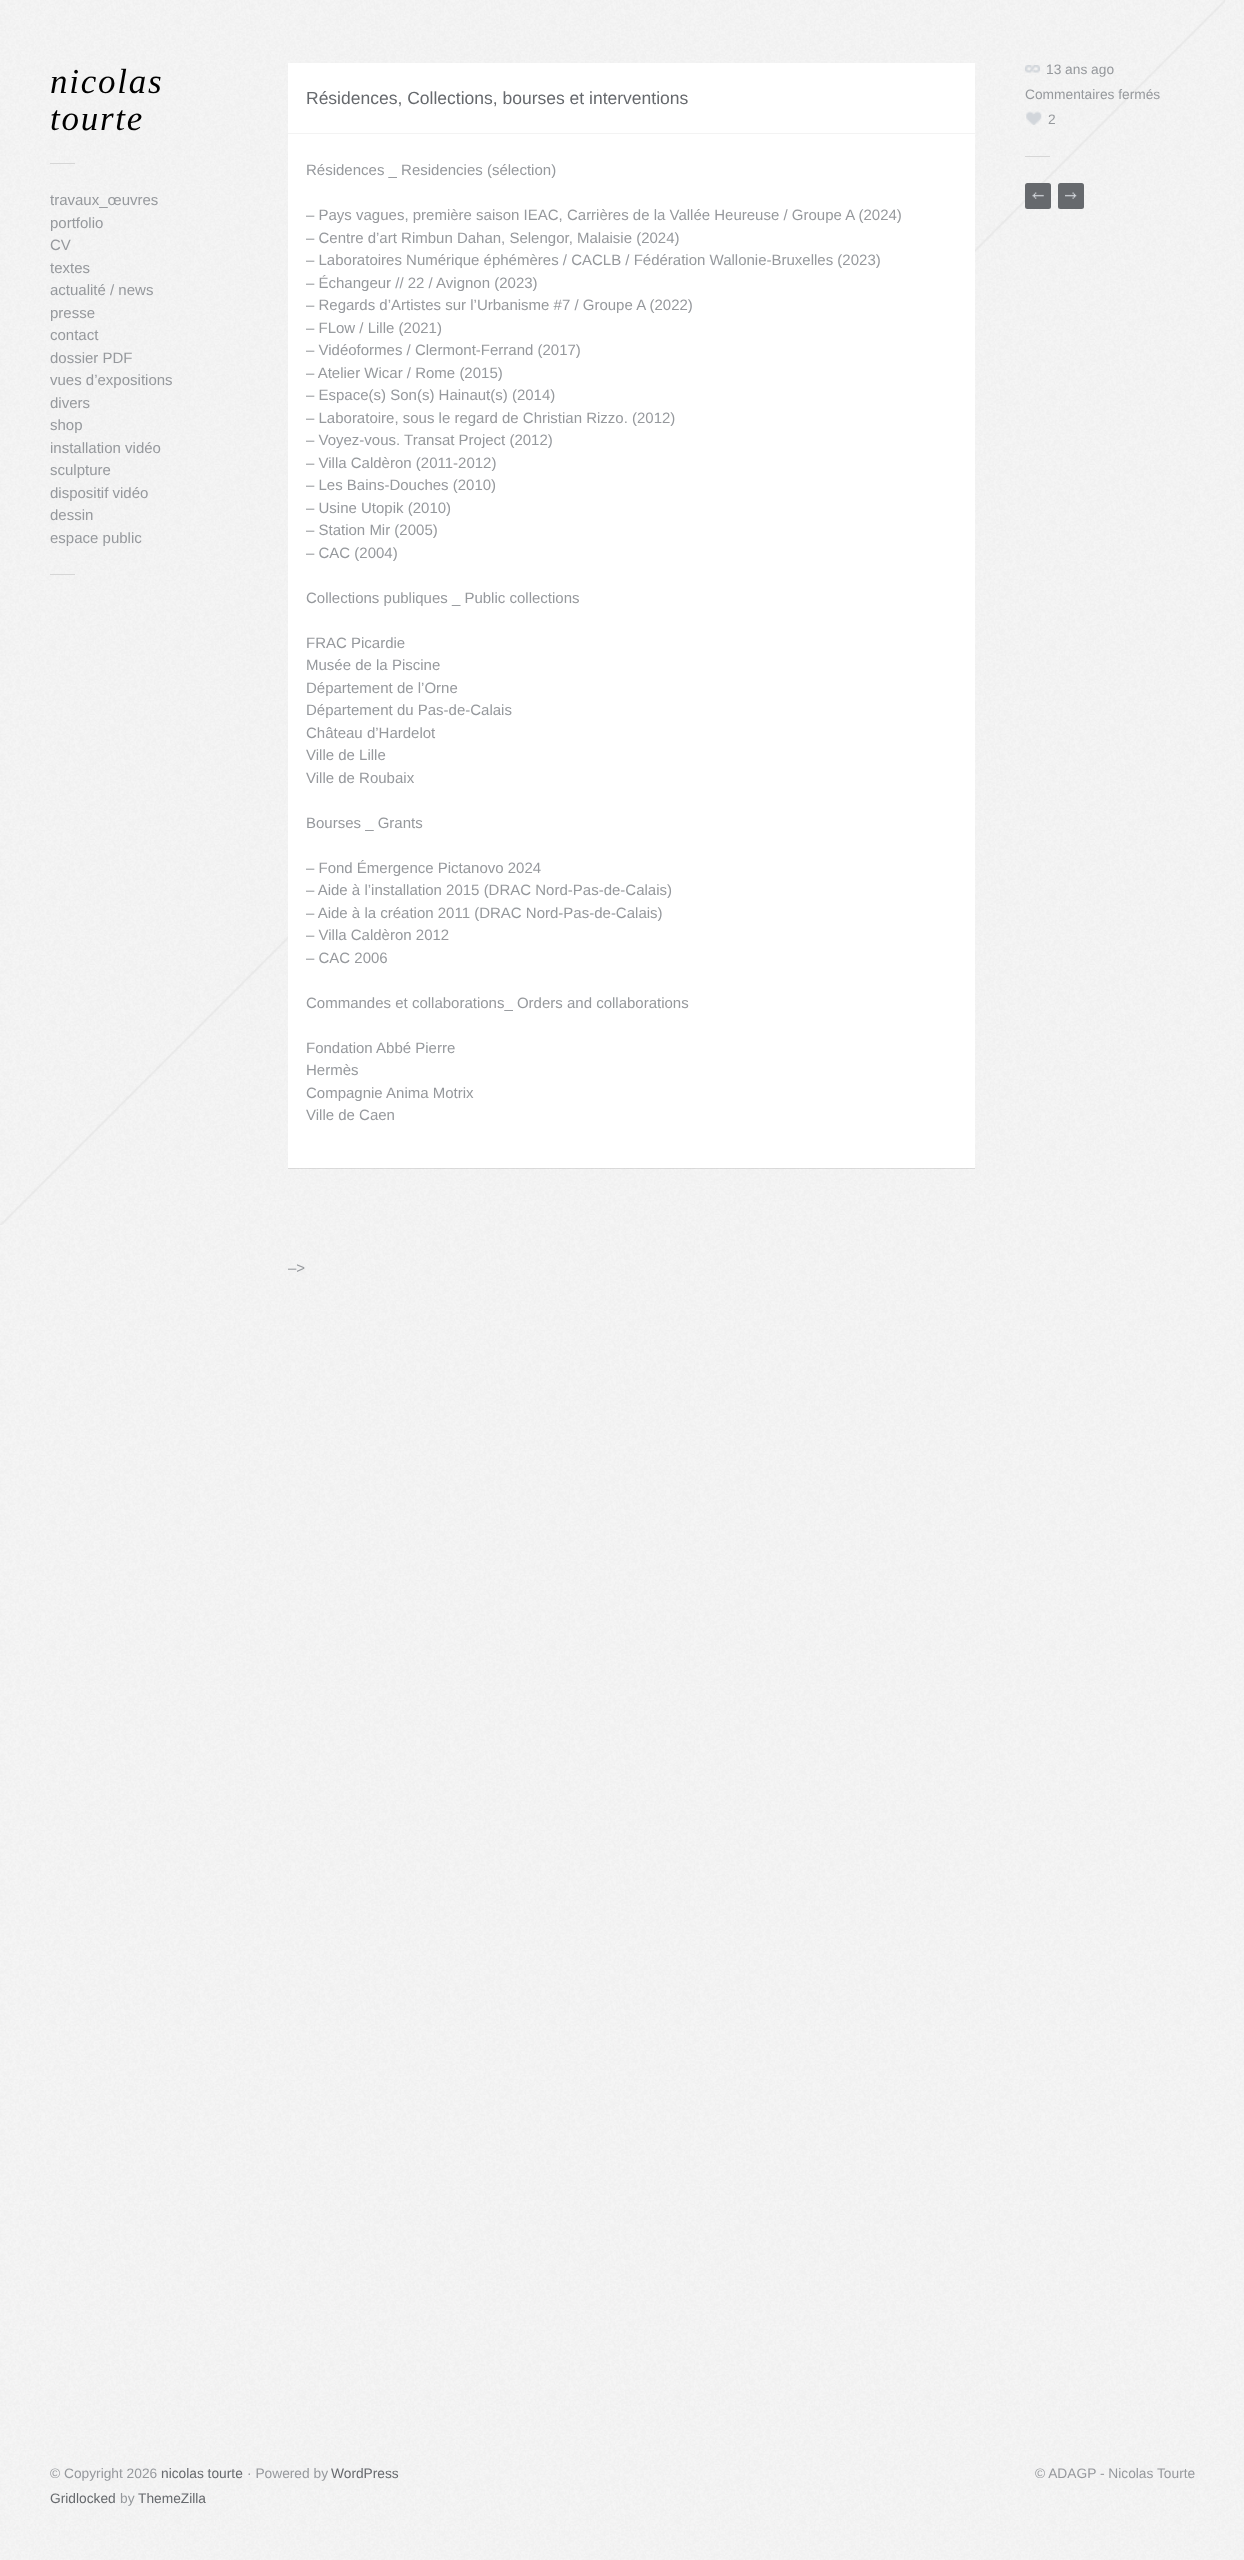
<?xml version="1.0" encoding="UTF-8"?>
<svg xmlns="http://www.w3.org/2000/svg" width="1244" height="2560">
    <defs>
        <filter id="blur1" x="-50%" y="-200%" width="200%" height="500%"><feGaussianBlur stdDeviation="0.5"/></filter>
    </defs>
    <rect width="100%" height="100%" fill="#FFFFFF"/>
    <image x="0" y="0" width="1244" height="2560" href="img_01.png"/>
    <image x="0" y="0" width="1225" height="1225" href="img_02.png"/>
    <text font-family="Liberation Serif" font-size="35" font-style="italic" letter-spacing="1.75" fill="#000000">
        <tspan x="50" y="93">nicolas</tspan>
        <tspan x="50" y="130">tourte</tspan>
    </text>
    <rect x="50" y="163" width="25" height="1" fill="#D6D6D6"/>
    <text font-family="Liberation Sans" font-size="15" fill="#96999D">
        <tspan x="50" y="205">travaux_œuvres</tspan>
        <tspan x="50" y="228">portfolio</tspan>
        <tspan x="50" y="250">CV</tspan>
        <tspan x="50" y="273">textes</tspan>
        <tspan x="50" y="295">actualité / news</tspan>
        <tspan x="50" y="318">presse</tspan>
        <tspan x="50" y="340">contact</tspan>
        <tspan x="50" y="363">dossier PDF</tspan>
        <tspan x="50" y="385">vues d’expositions</tspan>
        <tspan x="50" y="408">divers</tspan>
        <tspan x="50" y="430">shop</tspan>
        <tspan x="50" y="453">installation vidéo</tspan>
        <tspan x="50" y="475">sculpture</tspan>
        <tspan x="50" y="498">dispositif vidéo</tspan>
        <tspan x="50" y="520">dessin</tspan>
        <tspan x="50" y="543">espace public</tspan>
    </text>
    <rect x="50" y="574" width="25" height="1" fill="#D6D6D6"/>
    <rect x="288" y="64" width="687" height="1105" fill="#000000" fill-opacity="0.1" filter="url(#blur1)"/>
    <rect x="288" y="63" width="687" height="1105" fill="#FFFFFF"/>
    <rect x="288" y="133" width="687" height="1" fill="#F3F3F3"/>
    <text x="306" y="104" font-family="Liberation Sans" font-size="17.5" fill="#66696D">Résidences, Collections, bourses et interventions</text>
    <text x="306" y="175" font-family="Liberation Sans" font-size="15" fill="#96999D">Résidences _ Residencies (sélection)</text>
    <text font-family="Liberation Sans" font-size="15" fill="#96999D">
        <tspan x="306" y="220">– Pays vagues, première saison IEAC, Carrières de la Vallée Heureuse / Groupe A (2024)</tspan>
        <tspan x="306" y="243">– Centre d’art Rimbun Dahan, Selengor, Malaisie (2024)</tspan>
        <tspan x="306" y="265">– Laboratoires Numérique éphémères / CACLB / Fédération Wallonie-Bruxelles (2023)</tspan>
        <tspan x="306" y="288">– Échangeur // 22 / Avignon (2023)</tspan>
        <tspan x="306" y="310">– Regards d’Artistes sur l’Urbanisme #7 / Groupe A (2022)</tspan>
        <tspan x="306" y="333">– FLow / Lille (2021)</tspan>
        <tspan x="306" y="355">– Vidéoformes / Clermont-Ferrand (2017)</tspan>
        <tspan x="306" y="378">– Atelier Wicar / Rome (2015)</tspan>
        <tspan x="306" y="400">– Espace(s) Son(s) Hainaut(s) (2014)</tspan>
        <tspan x="306" y="423">– Laboratoire, sous le regard de Christian Rizzo. (2012)</tspan>
        <tspan x="306" y="445">– Voyez-vous. Transat Project (2012)</tspan>
        <tspan x="306" y="468">– Villa Caldèron (2011-2012)</tspan>
        <tspan x="306" y="490">– Les Bains-Douches (2010)</tspan>
        <tspan x="306" y="513">– Usine Utopik (2010)</tspan>
        <tspan x="306" y="535">– Station Mir (2005)</tspan>
        <tspan x="306" y="558">– CAC (2004)</tspan>
    </text>
    <text x="306" y="603" font-family="Liberation Sans" font-size="15" fill="#96999D">Collections publiques _ Public collections</text>
    <text font-family="Liberation Sans" font-size="15" fill="#96999D">
        <tspan x="306" y="648">FRAC Picardie</tspan>
        <tspan x="306" y="670">Musée de la Piscine</tspan>
        <tspan x="306" y="693">Département de l’Orne</tspan>
        <tspan x="306" y="715">Département du Pas-de-Calais</tspan>
        <tspan x="306" y="738">Château d’Hardelot</tspan>
        <tspan x="306" y="760">Ville de Lille</tspan>
        <tspan x="306" y="783">Ville de Roubaix</tspan>
    </text>
    <text x="306" y="828" font-family="Liberation Sans" font-size="15" fill="#96999D">Bourses _ Grants</text>
    <text font-family="Liberation Sans" font-size="15" fill="#96999D">
        <tspan x="306" y="873">– Fond Émergence Pictanovo 2024</tspan>
        <tspan x="306" y="895">– Aide à l’installation 2015 (DRAC Nord-Pas-de-Calais)</tspan>
        <tspan x="306" y="918">– Aide à la création 2011 (DRAC Nord-Pas-de-Calais)</tspan>
        <tspan x="306" y="940">– Villa Caldèron 2012</tspan>
        <tspan x="306" y="963">– CAC 2006</tspan>
    </text>
    <text x="306" y="1008" font-family="Liberation Sans" font-size="15" fill="#96999D">Commandes et collaborations_ Orders and collaborations</text>
    <text font-family="Liberation Sans" font-size="15" fill="#96999D">
        <tspan x="306" y="1053">Fondation Abbé Pierre</tspan>
        <tspan x="306" y="1075">Hermès</tspan>
        <tspan x="306" y="1098">Compagnie Anima Motrix</tspan>
        <tspan x="306" y="1120">Ville de Caen</tspan>
    </text>
    <text x="288" y="1273" font-family="Liberation Sans" font-size="15" fill="#96999D">–&gt;</text>
    <image x="1025" y="65" width="15" height="8" href="img_03.png"/>
    <text x="1046" y="74" font-family="Liberation Sans" font-size="13.75" fill="#96999D">13 ans ago</text>
    <text x="1025" y="99" font-family="Liberation Sans" font-size="13.75" fill="#96999D">Commentaires fermés</text>
    <image x="1026" y="111" width="16" height="14" href="img_04.png"/>
    <text x="1048" y="124" font-family="Liberation Sans" font-size="13.75" fill="#96999D">2</text>
    <rect x="1025" y="156" width="25" height="1" fill="#D6D6D6"/>
    <rect x="1025" y="183" width="26" height="26" rx="2.5" fill="#66696D"/>
    <image x="1032" y="192" width="12" height="7" href="img_05.png"/>
    <rect x="1058" y="183" width="26" height="26" rx="2.5" fill="#66696D"/>
    <image x="1065" y="192" width="12" height="7" href="img_06.png"/>
    <text x="50" y="2478" font-family="Liberation Sans" font-size="13.75" fill="#96999D">© Copyright 2026</text>
    <text x="161" y="2478" font-family="Liberation Sans" font-size="13.75" fill="#66696D">nicolas tourte</text>
    <text x="247" y="2478" font-family="Liberation Sans" font-size="13.75" fill="#96999D">· Powered by</text>
    <text x="331" y="2478" font-family="Liberation Sans" font-size="13.75" fill="#66696D">WordPress</text>
    <text x="50" y="2503" font-family="Liberation Sans" font-size="13.75" fill="#66696D">Gridlocked</text>
    <text x="120" y="2503" font-family="Liberation Sans" font-size="13.75" fill="#96999D">by</text>
    <text x="138" y="2503" font-family="Liberation Sans" font-size="13.75" fill="#66696D">ThemeZilla</text>
    <text x="1035" y="2478" font-family="Liberation Sans" font-size="13.75" fill="#96999D">© ADAGP - Nicolas Tourte</text>
</svg>
